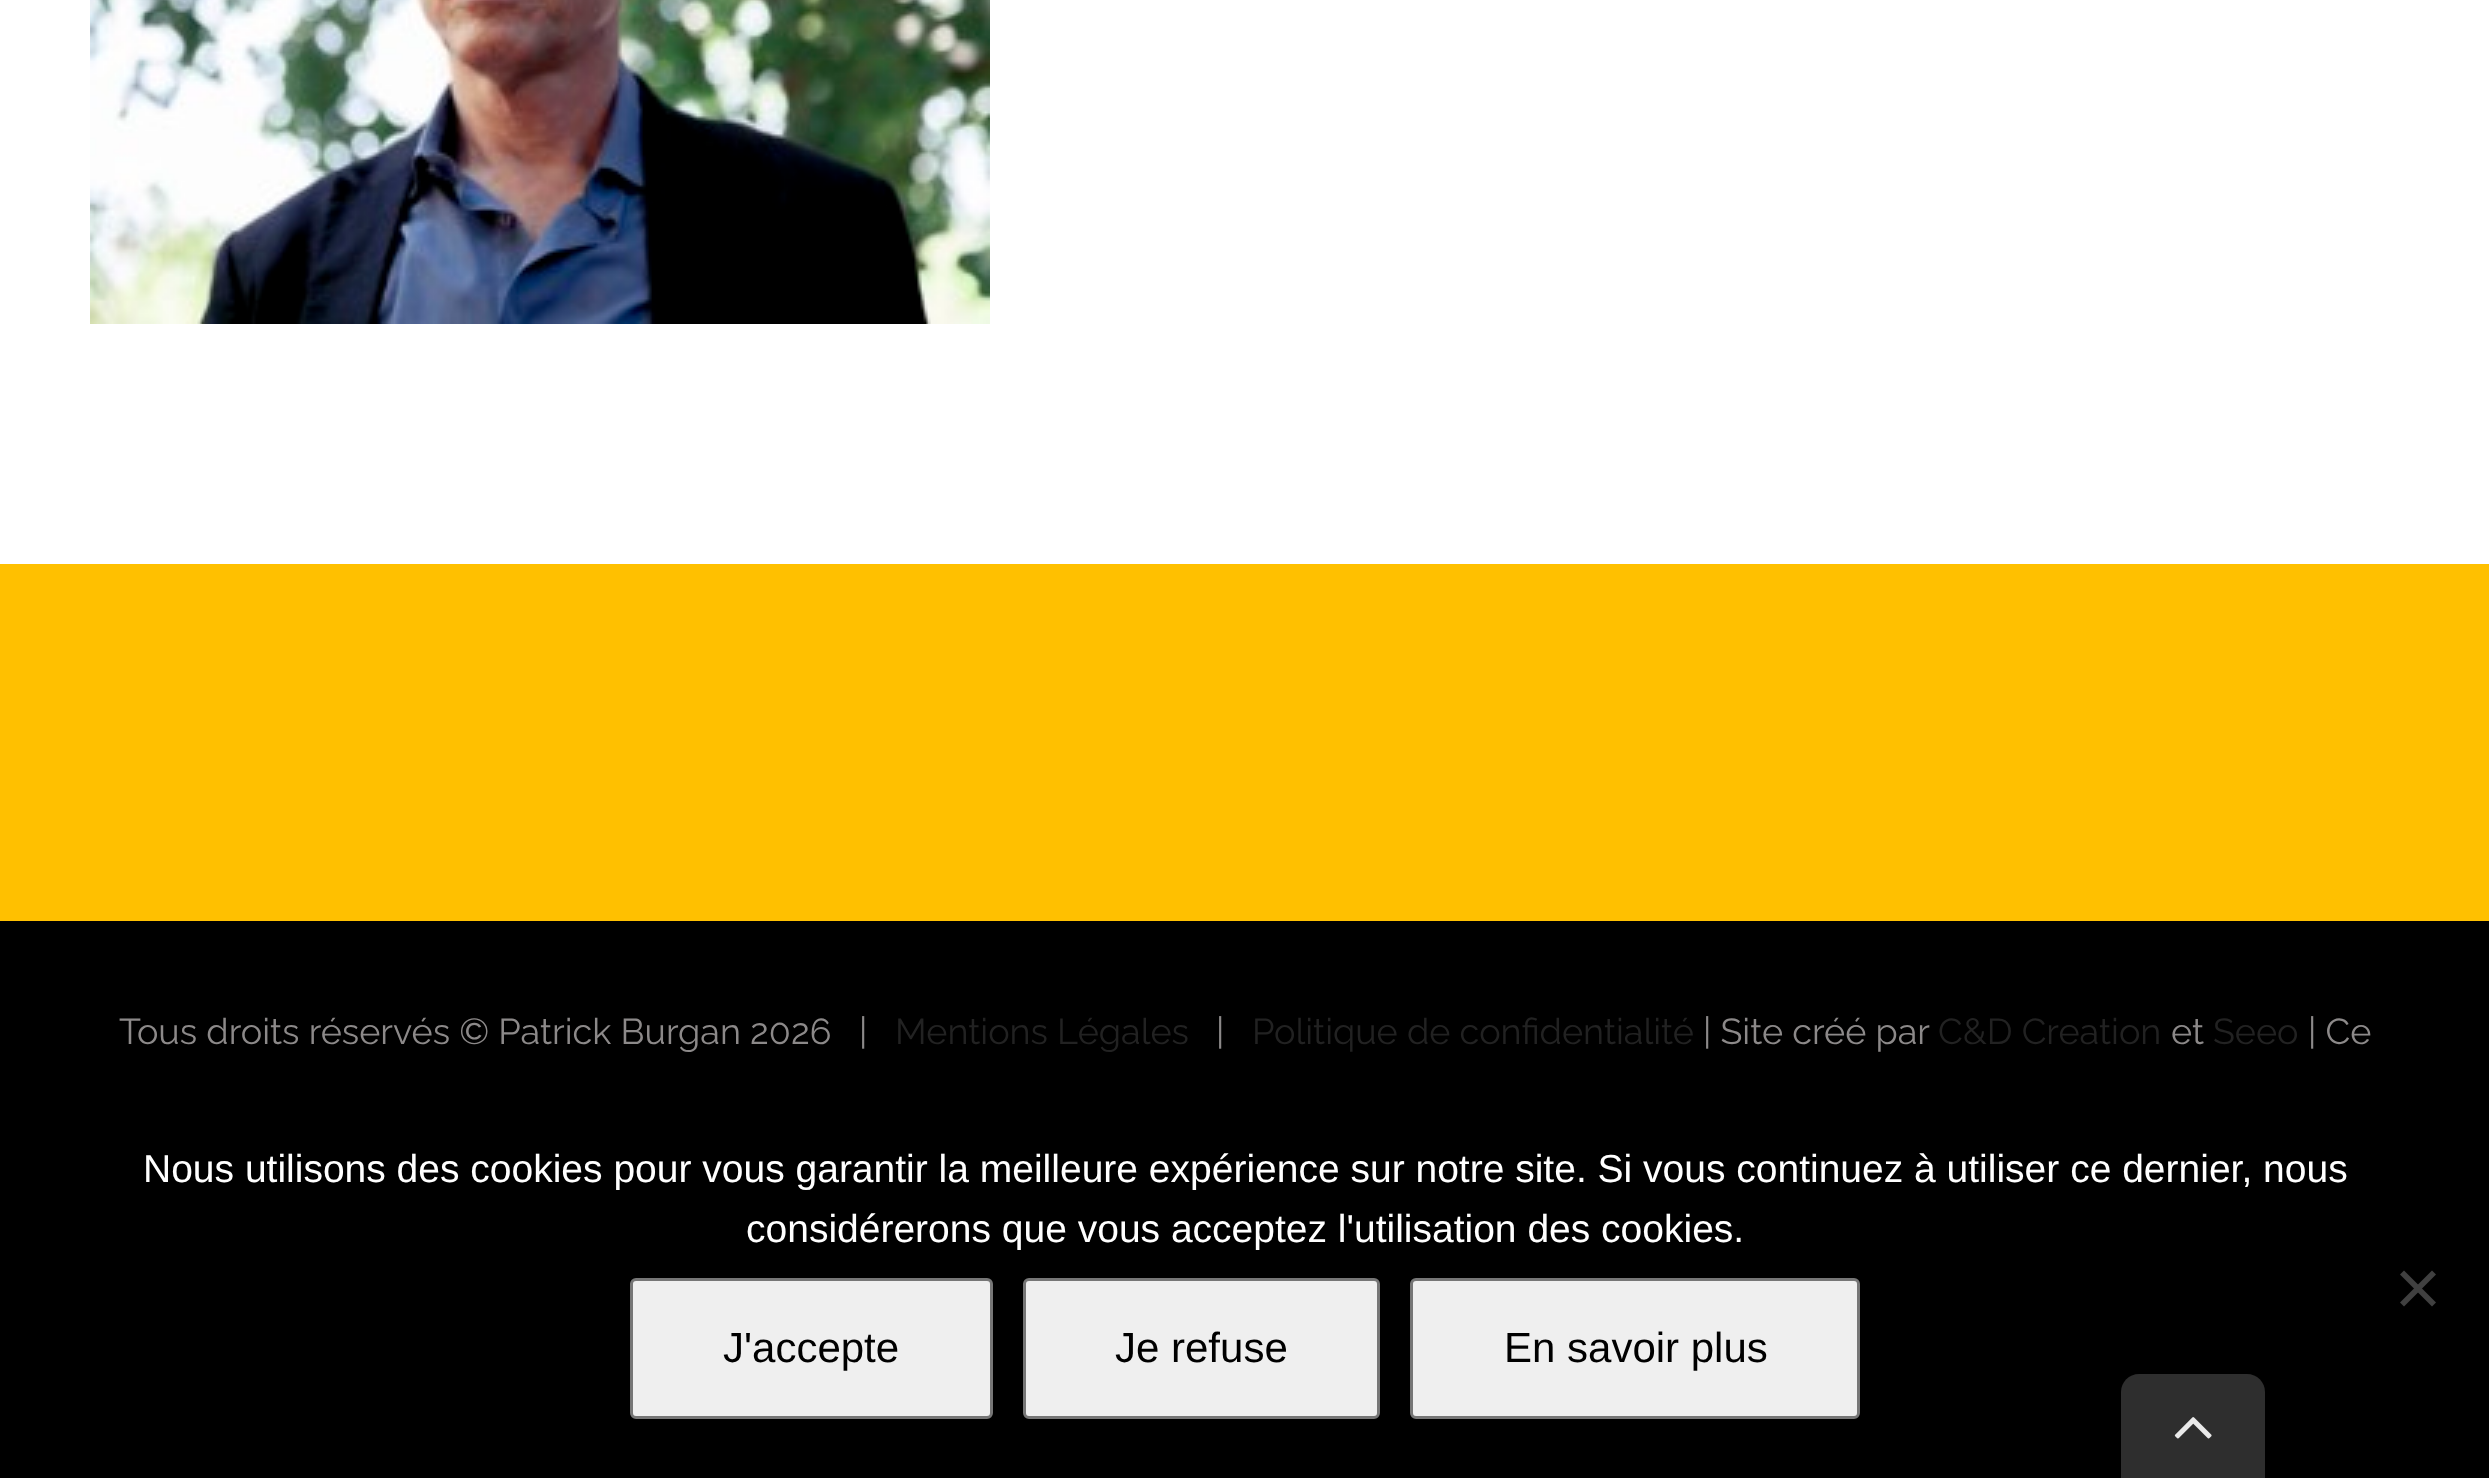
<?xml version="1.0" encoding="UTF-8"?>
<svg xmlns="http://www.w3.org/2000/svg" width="2489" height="1478">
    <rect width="100%" height="100%" fill="#FFFFFF"/>
    <image x="90" y="0" width="900" height="324" href="img_01.png"/>
    <rect x="0" y="564" width="2489" height="357" fill="#FFC000"/>
    <rect x="0" y="921" width="2489" height="557" fill="#000000"/>
    <text x="119" y="1044" font-family="Raleway" font-size="36" fill="#8C8989" xml:space="preserve">Tous droits réservés © Patrick Burgan 2026   |</text>
    <text x="895" y="1044" font-family="Raleway" font-size="36" fill="#222222">Mentions Légales</text>
    <text x="1216" y="1044" font-family="Raleway" font-size="36" fill="#8C8989">|</text>
    <text x="1252" y="1044" font-family="Raleway" font-size="36" fill="#222222">Politique de confidentialité</text>
    <text x="1703" y="1044" font-family="Raleway" font-size="36" fill="#8C8989">| Site créé par</text>
    <text x="1938" y="1044" font-family="Raleway" font-size="36" fill="#222222">C&amp;D Creation</text>
    <text x="2171" y="1044" font-family="Raleway" font-size="36" fill="#8C8989">et</text>
    <text x="2213" y="1044" font-family="Raleway" font-size="36" fill="#222222">Seeo</text>
    <text x="2308" y="1044" font-family="Raleway" font-size="36" fill="#8C8989">| Ce</text>
    <text x="143" y="1182" font-family="Liberation Sans" font-size="39" fill="#FFFFFF">Nous utilisons des cookies pour vous garantir la meilleure expérience sur notre site. Si vous continuez à utiliser ce dernier, nous</text>
    <text x="746" y="1242" font-family="Liberation Sans" font-size="39" fill="#FFFFFF">considérerons que vous acceptez l'utilisation des cookies.</text>
    <path d="M 2432 1270.5 L 2436 1274.5 L 2404 1306.5 L 2400 1302.5 Z" fill="#404040"/>
    <path d="M 2400 1274.5 L 2404 1270.5 L 2436 1302.5 L 2432 1306.5 Z" fill="#404040"/>
    <rect x="631.5" y="1279.5" width="360" height="138" rx="4.5" fill="#EFEFEF" stroke="#767676" stroke-width="3"/>
    <text x="723" y="1362" font-family="Liberation Sans" font-size="42" fill="#000000">J'accepte</text>
    <rect x="1024.5" y="1279.5" width="354" height="138" rx="4.5" fill="#EFEFEF" stroke="#767676" stroke-width="3"/>
    <text x="1115" y="1362" font-family="Liberation Sans" font-size="42" fill="#000000">Je refuse</text>
    <rect x="1411.5" y="1279.5" width="447" height="138" rx="4.5" fill="#EFEFEF" stroke="#767676" stroke-width="3"/>
    <text x="1504" y="1362" font-family="Liberation Sans" font-size="42" fill="#000000">En savoir plus</text>
    <path d="M 2139 1374 H 2247 C 2257 1374 2265 1382 2265 1392 V 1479 H 2121 V 1392 C 2121 1382 2129 1374 2139 1374 Z" fill="#2E2E2E"/>
    <image x="2174" y="1417" width="38" height="22" href="img_02.png"/>
</svg>
